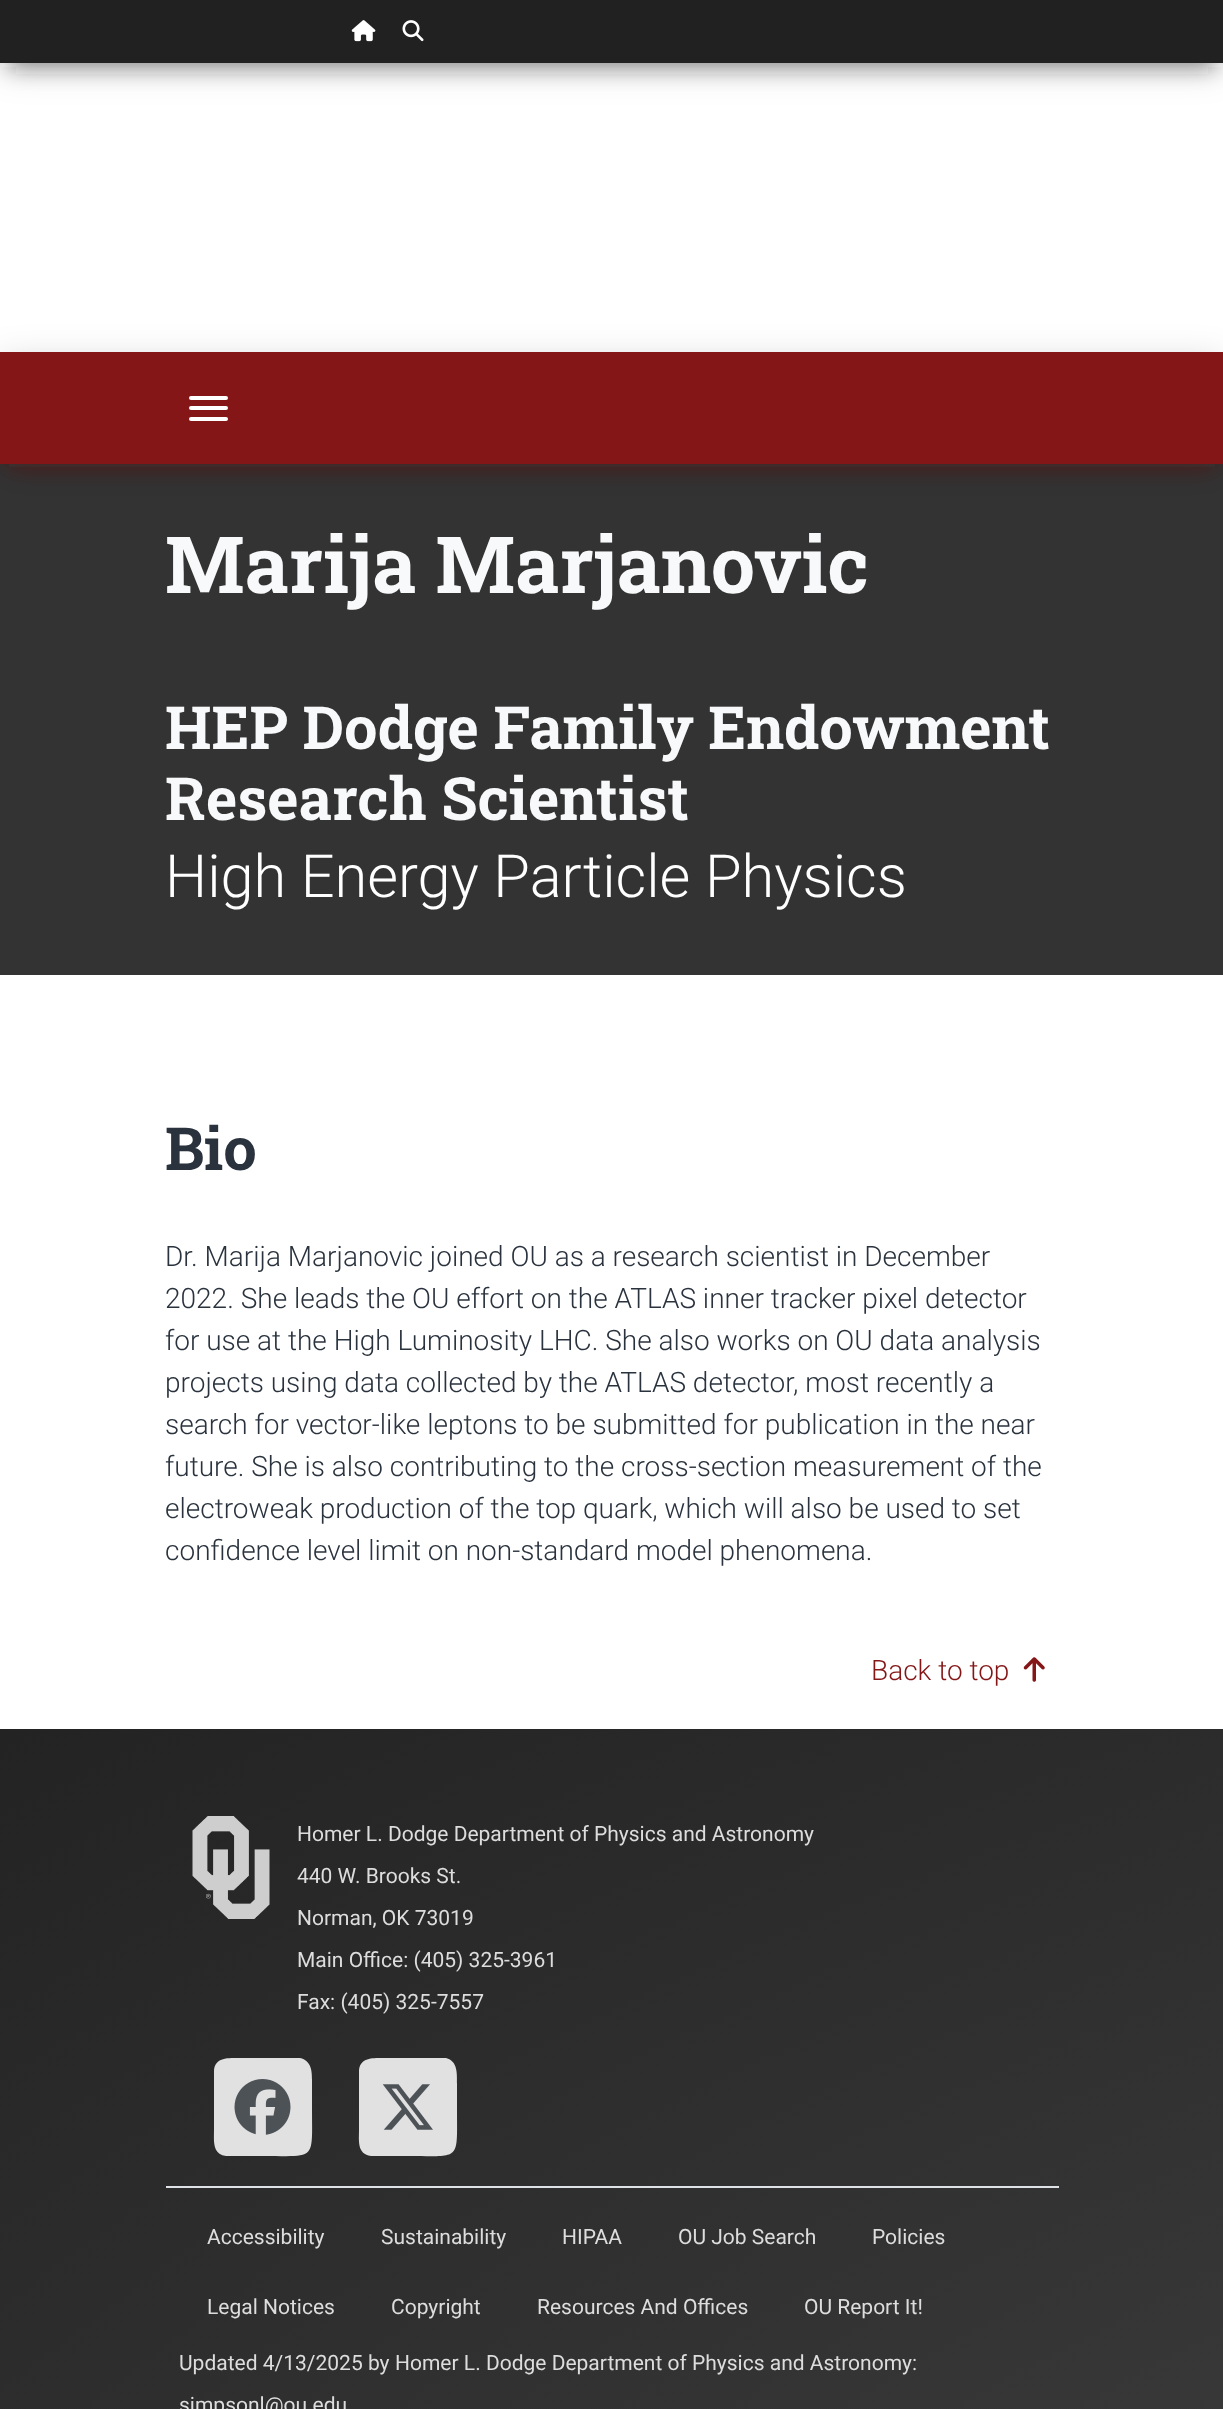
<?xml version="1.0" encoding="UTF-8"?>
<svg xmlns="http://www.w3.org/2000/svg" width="1223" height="2409">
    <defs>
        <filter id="blur1" x="-50%" y="-200%" width="200%" height="500%"><feGaussianBlur stdDeviation="10.5"/></filter>
        <filter id="blur2" x="-50%" y="-200%" width="200%" height="500%"><feGaussianBlur stdDeviation="17.5"/></filter>
        <radialGradient id="g1" gradientUnits="userSpaceOnUse" cx="0" cy="0" r="1" gradientTransform="matrix(4757 0 0 2305 3364 3359)"><stop offset="0" stop-color="#585858"/><stop offset="1" stop-color="#232323"/></radialGradient>
    </defs>
    <rect width="100%" height="100%" fill="#FFFFFF"/>
    <rect x="9" y="21" width="1206" height="46" fill="#212121" fill-opacity="0.46" filter="url(#blur1)"/>
    <rect x="0" y="7" width="1223" height="63" fill="#000000" fill-opacity="0.14" filter="url(#blur2)"/>
    <rect x="0" y="0" width="1223" height="63" fill="#212121"/>
    <image x="351" y="20" width="25" height="22" href="img_01.png"/>
    <image x="402" y="20" width="22" height="22" href="img_02.png"/>
    <rect x="0" y="464" width="1223" height="511" fill="#333333"/>
    <rect x="9" y="373" width="1206" height="94" fill="#841617" fill-opacity="0.46" filter="url(#blur1)"/>
    <rect x="0" y="359" width="1223" height="112" fill="#000000" fill-opacity="0.14" filter="url(#blur2)"/>
    <rect x="0" y="352" width="1223" height="112" fill="#841617"/>
    <rect x="189" y="396" width="39" height="4" rx="2" fill="#FFFFFF"/>
    <rect x="189" y="406" width="39" height="4" rx="2" fill="#FFFFFF"/>
    <rect x="189" y="417" width="39" height="4" rx="2" fill="#FFFFFF"/>
    <text x="165" y="593" font-family="Roboto Slab" font-size="78.75" font-weight="700" fill="#F8F9FA">Marija Marjanovic</text>
    <text font-family="Roboto Slab" font-size="59.5" font-weight="700" fill="#F8F9FA">
        <tspan x="165" y="749">HEP Dodge Family Endowment</tspan>
        <tspan x="165" y="820">Research Scientist</tspan>
    </text>
    <text x="165" y="897" font-family="Roboto" font-size="59.5" font-weight="300" fill="#FFFFFF">High Energy Particle Physics</text>
    <text x="165" y="1170" font-family="Roboto Slab" font-size="59.5" font-weight="700" fill="#29323D">Bio</text>
    <text font-family="Roboto" font-size="28" font-weight="300" fill="#29323D">
        <tspan x="165" y="1266">Dr. Marija Marjanovic joined OU as a research scientist in December</tspan>
        <tspan x="165" y="1308">2022. She leads the OU effort on the ATLAS inner tracker pixel detector</tspan>
        <tspan x="165" y="1350">for use at the High Luminosity LHC. She also works on OU data analysis</tspan>
        <tspan x="165" y="1392">projects using data collected by the ATLAS detector, most recently a</tspan>
        <tspan x="165" y="1434">search for vector-like leptons to be submitted for publication in the near</tspan>
        <tspan x="165" y="1476">future. She is also contributing to the cross-section measurement of the</tspan>
        <tspan x="165" y="1518">electroweak production of the top quark, which will also be used to set</tspan>
        <tspan x="165" y="1560">confidence level limit on non-standard model phenomena.</tspan>
    </text>
    <text x="871" y="1680" font-family="Roboto" font-size="28" font-weight="300" fill="#841617">Back to top</text>
    <image x="1023" y="1657" width="22" height="25" href="img_03.png"/>
    <rect x="0" y="1729" width="1223" height="680" fill="url(#g1)"/>
    <image x="192" y="1816" width="78" height="103" href="img_04.png"/>
    <text x="297" y="1841" font-family="Roboto" font-size="21" fill="#DDDDDD">Homer L. Dodge Department of Physics and Astronomy</text>
    <text x="297" y="1883" font-family="Roboto" font-size="21" fill="#DDDDDD">440 W. Brooks St.</text>
    <text x="297" y="1925" font-family="Roboto" font-size="21" fill="#DDDDDD">Norman, OK 73019</text>
    <text x="297" y="1967" font-family="Roboto" font-size="21" fill="#DDDDDD">Main Office: (405) 325-3961</text>
    <text x="297" y="2009" font-family="Roboto" font-size="21" fill="#DDDDDD">Fax: (405) 325-7557</text>
    <path d="M 214 2072 C 214 2057 228 2058 239 2058 H 300 C 313 2061 312 2074 312 2084 V 2107 C 312 2162 317 2156 262 2156 H 226 C 212 2154 214 2141 214 2130 Z" fill="#E1E1E1"/>
    <image x="234" y="2079" width="57" height="56" href="img_05.png"/>
    <path d="M 359 2072 C 359 2057 373 2058 384 2058 H 446 C 458 2061 457 2074 457 2084 V 2107 C 457 2162 462 2156 408 2156 H 371 C 357 2154 359 2141 359 2130 Z" fill="#E1E1E1"/>
    <image x="382" y="2084" width="51" height="46" href="img_06.png"/>
    <rect x="166" y="2186" width="893" height="2" fill="#DEE2E6"/>
    <text x="207" y="2244" font-family="Roboto" font-size="21" fill="#DDDDDD">Accessibility</text>
    <text x="381" y="2244" font-family="Roboto" font-size="21" fill="#DDDDDD">Sustainability</text>
    <text x="562" y="2244" font-family="Roboto" font-size="21" fill="#DDDDDD">HIPAA</text>
    <text x="678" y="2244" font-family="Roboto" font-size="21" fill="#DDDDDD">OU Job Search</text>
    <text x="872" y="2244" font-family="Roboto" font-size="21" fill="#DDDDDD">Policies</text>
    <text x="207" y="2314" font-family="Roboto" font-size="21" fill="#DDDDDD">Legal Notices</text>
    <text x="391" y="2314" font-family="Roboto" font-size="21" fill="#DDDDDD">Copyright</text>
    <text x="537" y="2314" font-family="Roboto" font-size="21" fill="#DDDDDD">Resources And Offices</text>
    <text x="804" y="2314" font-family="Roboto" font-size="21" fill="#DDDDDD">OU Report It!</text>
    <text x="179" y="2370" font-family="Roboto" font-size="21" fill="#DDDDDD">Updated 4/13/2025 by</text>
    <text x="395" y="2370" font-family="Roboto" font-size="21" fill="#DDDDDD">Homer L. Dodge Department of Physics and Astronomy</text>
    <text x="912" y="2370" font-family="Roboto" font-size="21" fill="#DDDDDD">:</text>
    <text x="179" y="2412" font-family="Roboto" font-size="21" fill="#DDDDDD">simpsonl@ou.edu</text>
</svg>
